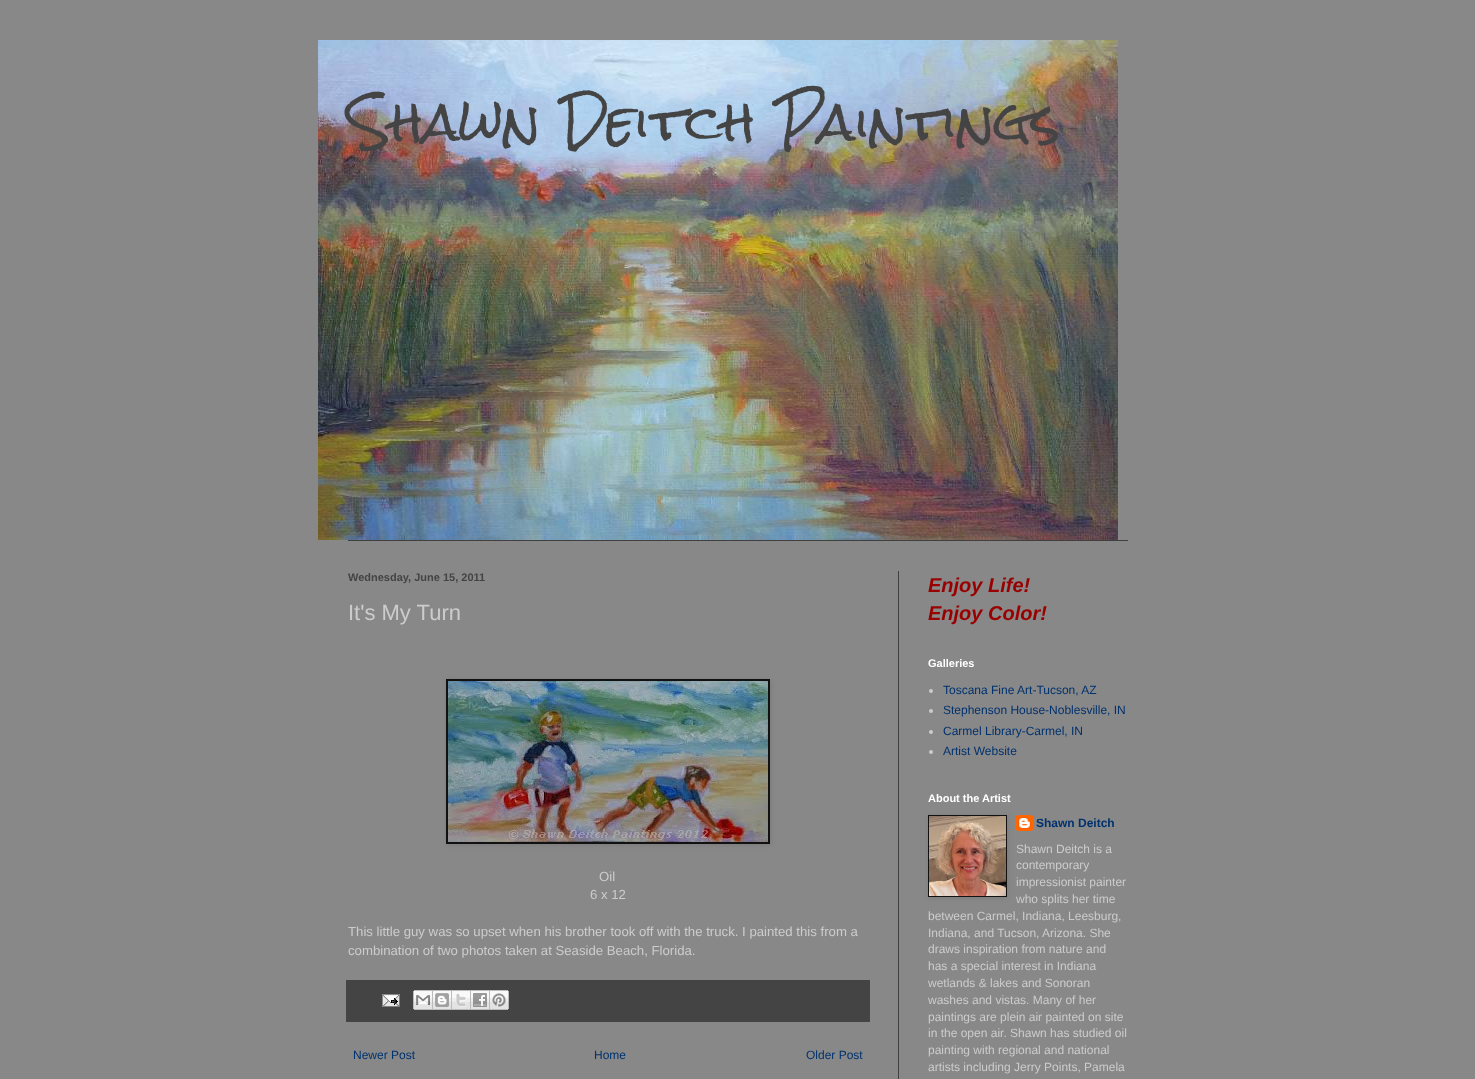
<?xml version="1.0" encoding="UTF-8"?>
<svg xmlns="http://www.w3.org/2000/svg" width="1475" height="1079">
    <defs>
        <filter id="blur1" x="-50%" y="-200%" width="200%" height="500%"><feGaussianBlur stdDeviation="2.5"/></filter>
    </defs>
    <rect width="100%" height="100%" fill="#888888"/>
    <image x="318" y="40" width="800" height="500" href="img_01.png"/>
    <text x="348" y="142" font-family="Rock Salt" font-size="50" fill="#444444">Shawn Deitch Paintings</text>
    <rect x="348" y="540" width="780" height="1" fill="#404040"/>
    <rect x="898" y="571" width="1" height="508" fill="#404040"/>
    <text x="348" y="581" font-family="Liberation Sans" font-size="11" font-weight="700" fill="#444444">Wednesday, June 15, 2011</text>
    <text x="348" y="620" font-family="Liberation Sans" font-size="22" fill="#CCCCCC">It's My Turn</text>
    <rect x="447" y="680" width="324" height="165" fill="#000000" fill-opacity="0.1" filter="url(#blur1)"/>
    <rect x="446" y="679" width="324" height="165" fill="#111111"/>
    <image x="448" y="681" width="320" height="161" href="img_02.png"/>
    <text x="599" y="881" font-family="Liberation Sans" font-size="13.2" fill="#CCCCCC">Oil</text>
    <text x="590" y="899" font-family="Liberation Sans" font-size="13.2" fill="#CCCCCC">6 x 12</text>
    <text font-family="Liberation Sans" font-size="13.2" fill="#CCCCCC">
        <tspan x="348" y="936">This little guy was so upset when his brother took off with the truck. I painted this from a</tspan>
        <tspan x="348" y="955">combination of two photos taken at Seaside Beach, Florida.</tspan>
    </text>
    <rect x="346" y="980" width="524" height="42" fill="#444444"/>
    <image x="382" y="994" width="18" height="13" href="img_03.png"/>
    <image x="413" y="990" width="20" height="20" href="img_04.png"/>
    <image x="433" y="990" width="19" height="20" href="img_05.png"/>
    <image x="452" y="990" width="19" height="20" href="img_06.png"/>
    <image x="471" y="990" width="19" height="20" href="img_07.png"/>
    <image x="490" y="990" width="19" height="20" href="img_08.png"/>
    <text x="353" y="1059" font-family="Liberation Sans" font-size="12" fill="#00326E">Newer Post</text>
    <text x="594" y="1059" font-family="Liberation Sans" font-size="12" fill="#00326E">Home</text>
    <text x="806" y="1059" font-family="Liberation Sans" font-size="12" fill="#00326E">Older Post</text>
    <text font-family="Liberation Sans" font-size="20" font-weight="700" font-style="italic" fill="#990000">
        <tspan x="928" y="592">Enjoy Life!</tspan>
        <tspan x="928" y="620">Enjoy Color!</tspan>
    </text>
    <text x="928" y="667" font-family="Liberation Sans" font-size="11" font-weight="700" fill="#FFFFFF">Galleries</text>
    <circle cx="931" cy="691" r="2" fill="#CCCCCC"/>
    <text x="943" y="694" font-family="Liberation Sans" font-size="12" fill="#00326E">Toscana Fine Art-Tucson, AZ</text>
    <circle cx="931" cy="711" r="2" fill="#CCCCCC"/>
    <text x="943" y="714" font-family="Liberation Sans" font-size="12" fill="#00326E">Stephenson House-Noblesville, IN</text>
    <circle cx="931" cy="732" r="2" fill="#CCCCCC"/>
    <text x="943" y="735" font-family="Liberation Sans" font-size="12" fill="#00326E">Carmel Library-Carmel, IN</text>
    <circle cx="931" cy="752" r="2" fill="#CCCCCC"/>
    <text x="943" y="755" font-family="Liberation Sans" font-size="12" fill="#00326E">Artist Website</text>
    <text x="928" y="802" font-family="Liberation Sans" font-size="11" font-weight="700" fill="#FFFFFF">About the Artist</text>
    <image x="1016" y="815" width="17" height="16" href="img_10.png"/>
    <rect x="929" y="816" width="79" height="82" fill="#000000" fill-opacity="0.1" filter="url(#blur1)"/>
    <rect x="928" y="815" width="79" height="82" fill="#111111"/>
    <image x="929" y="816" width="77" height="80" href="img_09.png"/>
    <text x="1036" y="827" font-family="Liberation Sans" font-size="12" font-weight="700" fill="#00326E">Shawn Deitch</text>
    <text font-family="Liberation Sans" font-size="12" fill="#CCCCCC">
        <tspan x="1016" y="853">Shawn Deitch is a</tspan>
        <tspan x="1016" y="869">contemporary</tspan>
        <tspan x="1016" y="886">impressionist painter</tspan>
        <tspan x="1016" y="903">who splits her time</tspan>
    </text>
    <text font-family="Liberation Sans" font-size="12" fill="#CCCCCC">
        <tspan x="928" y="920">between Carmel, Indiana, Leesburg,</tspan>
        <tspan x="928" y="937">Indiana, and Tucson, Arizona. She</tspan>
        <tspan x="928" y="953">draws inspiration from nature and</tspan>
        <tspan x="928" y="970">has a special interest in Indiana</tspan>
        <tspan x="928" y="987">wetlands &amp; lakes and Sonoran</tspan>
        <tspan x="928" y="1004">washes and vistas. Many of her</tspan>
        <tspan x="928" y="1021">paintings are plein air painted on site</tspan>
        <tspan x="928" y="1037">in the open air. Shawn has studied oil</tspan>
        <tspan x="928" y="1054">painting with regional and national</tspan>
        <tspan x="928" y="1071">artists including Jerry Points, Pamela</tspan>
    </text>
</svg>
